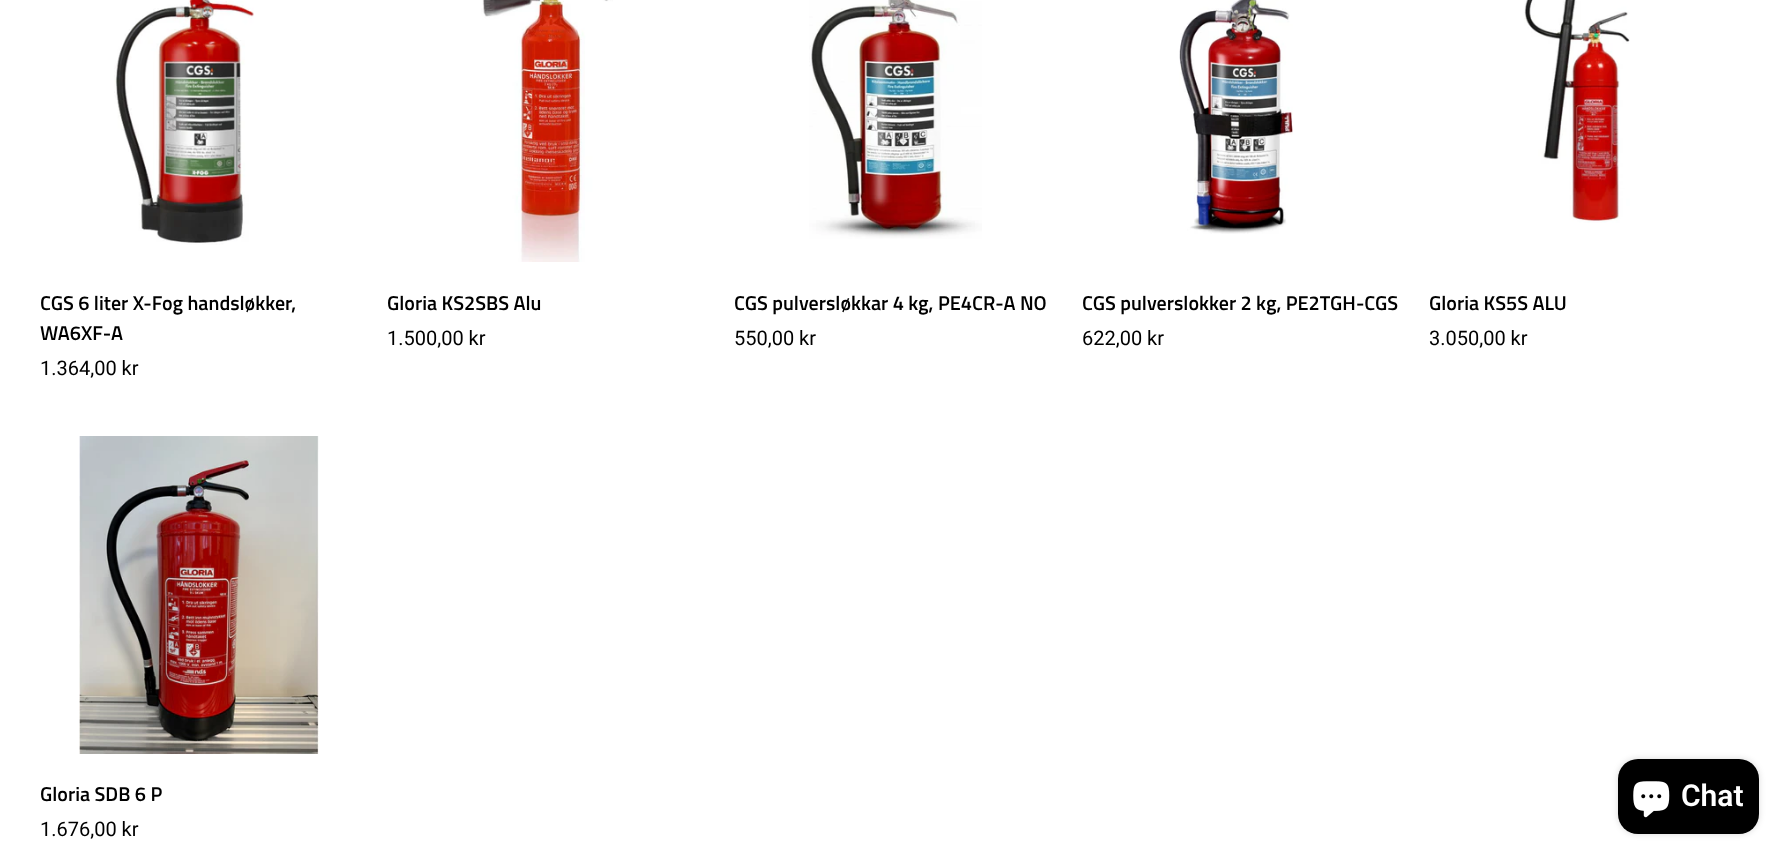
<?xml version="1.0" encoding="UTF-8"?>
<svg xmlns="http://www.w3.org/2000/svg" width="1786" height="860">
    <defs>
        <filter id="blur1" x="-50%" y="-200%" width="200%" height="500%"><feGaussianBlur stdDeviation="3"/></filter>
    </defs>
    <rect width="100%" height="100%" fill="#FFFFFF"/>
    <image x="114" y="0" width="140" height="245" href="img_01.png"/>
    <text font-family="Titillium Web" font-size="20" font-weight="600" fill="#000000">
        <tspan x="40" y="310">CGS 6 liter X-Fog handsløkker,</tspan>
        <tspan x="40" y="340">WA6XF-A</tspan>
    </text>
    <text x="40" y="375" font-family="Roboto" font-size="20" fill="#000000">1.364,00 kr</text>
    <image x="481" y="0" width="132" height="262" href="img_02.png"/>
    <text x="387" y="310" font-family="Titillium Web" font-size="20" font-weight="600" fill="#000000">Gloria KS2SBS Alu</text>
    <text x="387" y="345" font-family="Roboto" font-size="20" fill="#000000">1.500,00 kr</text>
    <image x="809" y="0" width="173" height="239" href="img_03.png"/>
    <text x="734" y="310" font-family="Titillium Web" font-size="20" font-weight="600" fill="#000000">CGS pulversløkkar 4 kg, PE4CR-A NO</text>
    <text x="734" y="345" font-family="Roboto" font-size="20" fill="#000000">550,00 kr</text>
    <image x="1179" y="0" width="114" height="234" href="img_04.png"/>
    <text x="1082" y="310" font-family="Titillium Web" font-size="20" font-weight="600" fill="#000000">CGS pulverslokker 2 kg, PE2TGH-CGS</text>
    <text x="1082" y="345" font-family="Roboto" font-size="20" fill="#000000">622,00 kr</text>
    <image x="1524" y="0" width="106" height="223" href="img_05.png"/>
    <text x="1429" y="310" font-family="Titillium Web" font-size="20" font-weight="600" fill="#000000">Gloria KS5S ALU</text>
    <text x="1429" y="345" font-family="Roboto" font-size="20" fill="#000000">3.050,00 kr</text>
    <image x="79" y="436" width="240" height="318" href="img_06.png"/>
    <text x="40" y="801" font-family="Titillium Web" font-size="20" font-weight="600" fill="#000000">Gloria SDB 6 P</text>
    <text x="40" y="836" font-family="Roboto" font-size="20" fill="#000000">1.676,00 kr</text>
    <rect x="1618" y="759" width="141" height="75" rx="20" fill="#000000" fill-opacity="0.15" filter="url(#blur1)"/>
    <rect x="1618" y="759" width="141" height="75" rx="20" fill="#000000"/>
    <image x="1633" y="781" width="37" height="37" href="img_07.png"/>
    <text x="1681" y="806" font-family="Roboto" font-size="30" font-weight="600" fill="#FFFFFF">Chat</text>
</svg>
